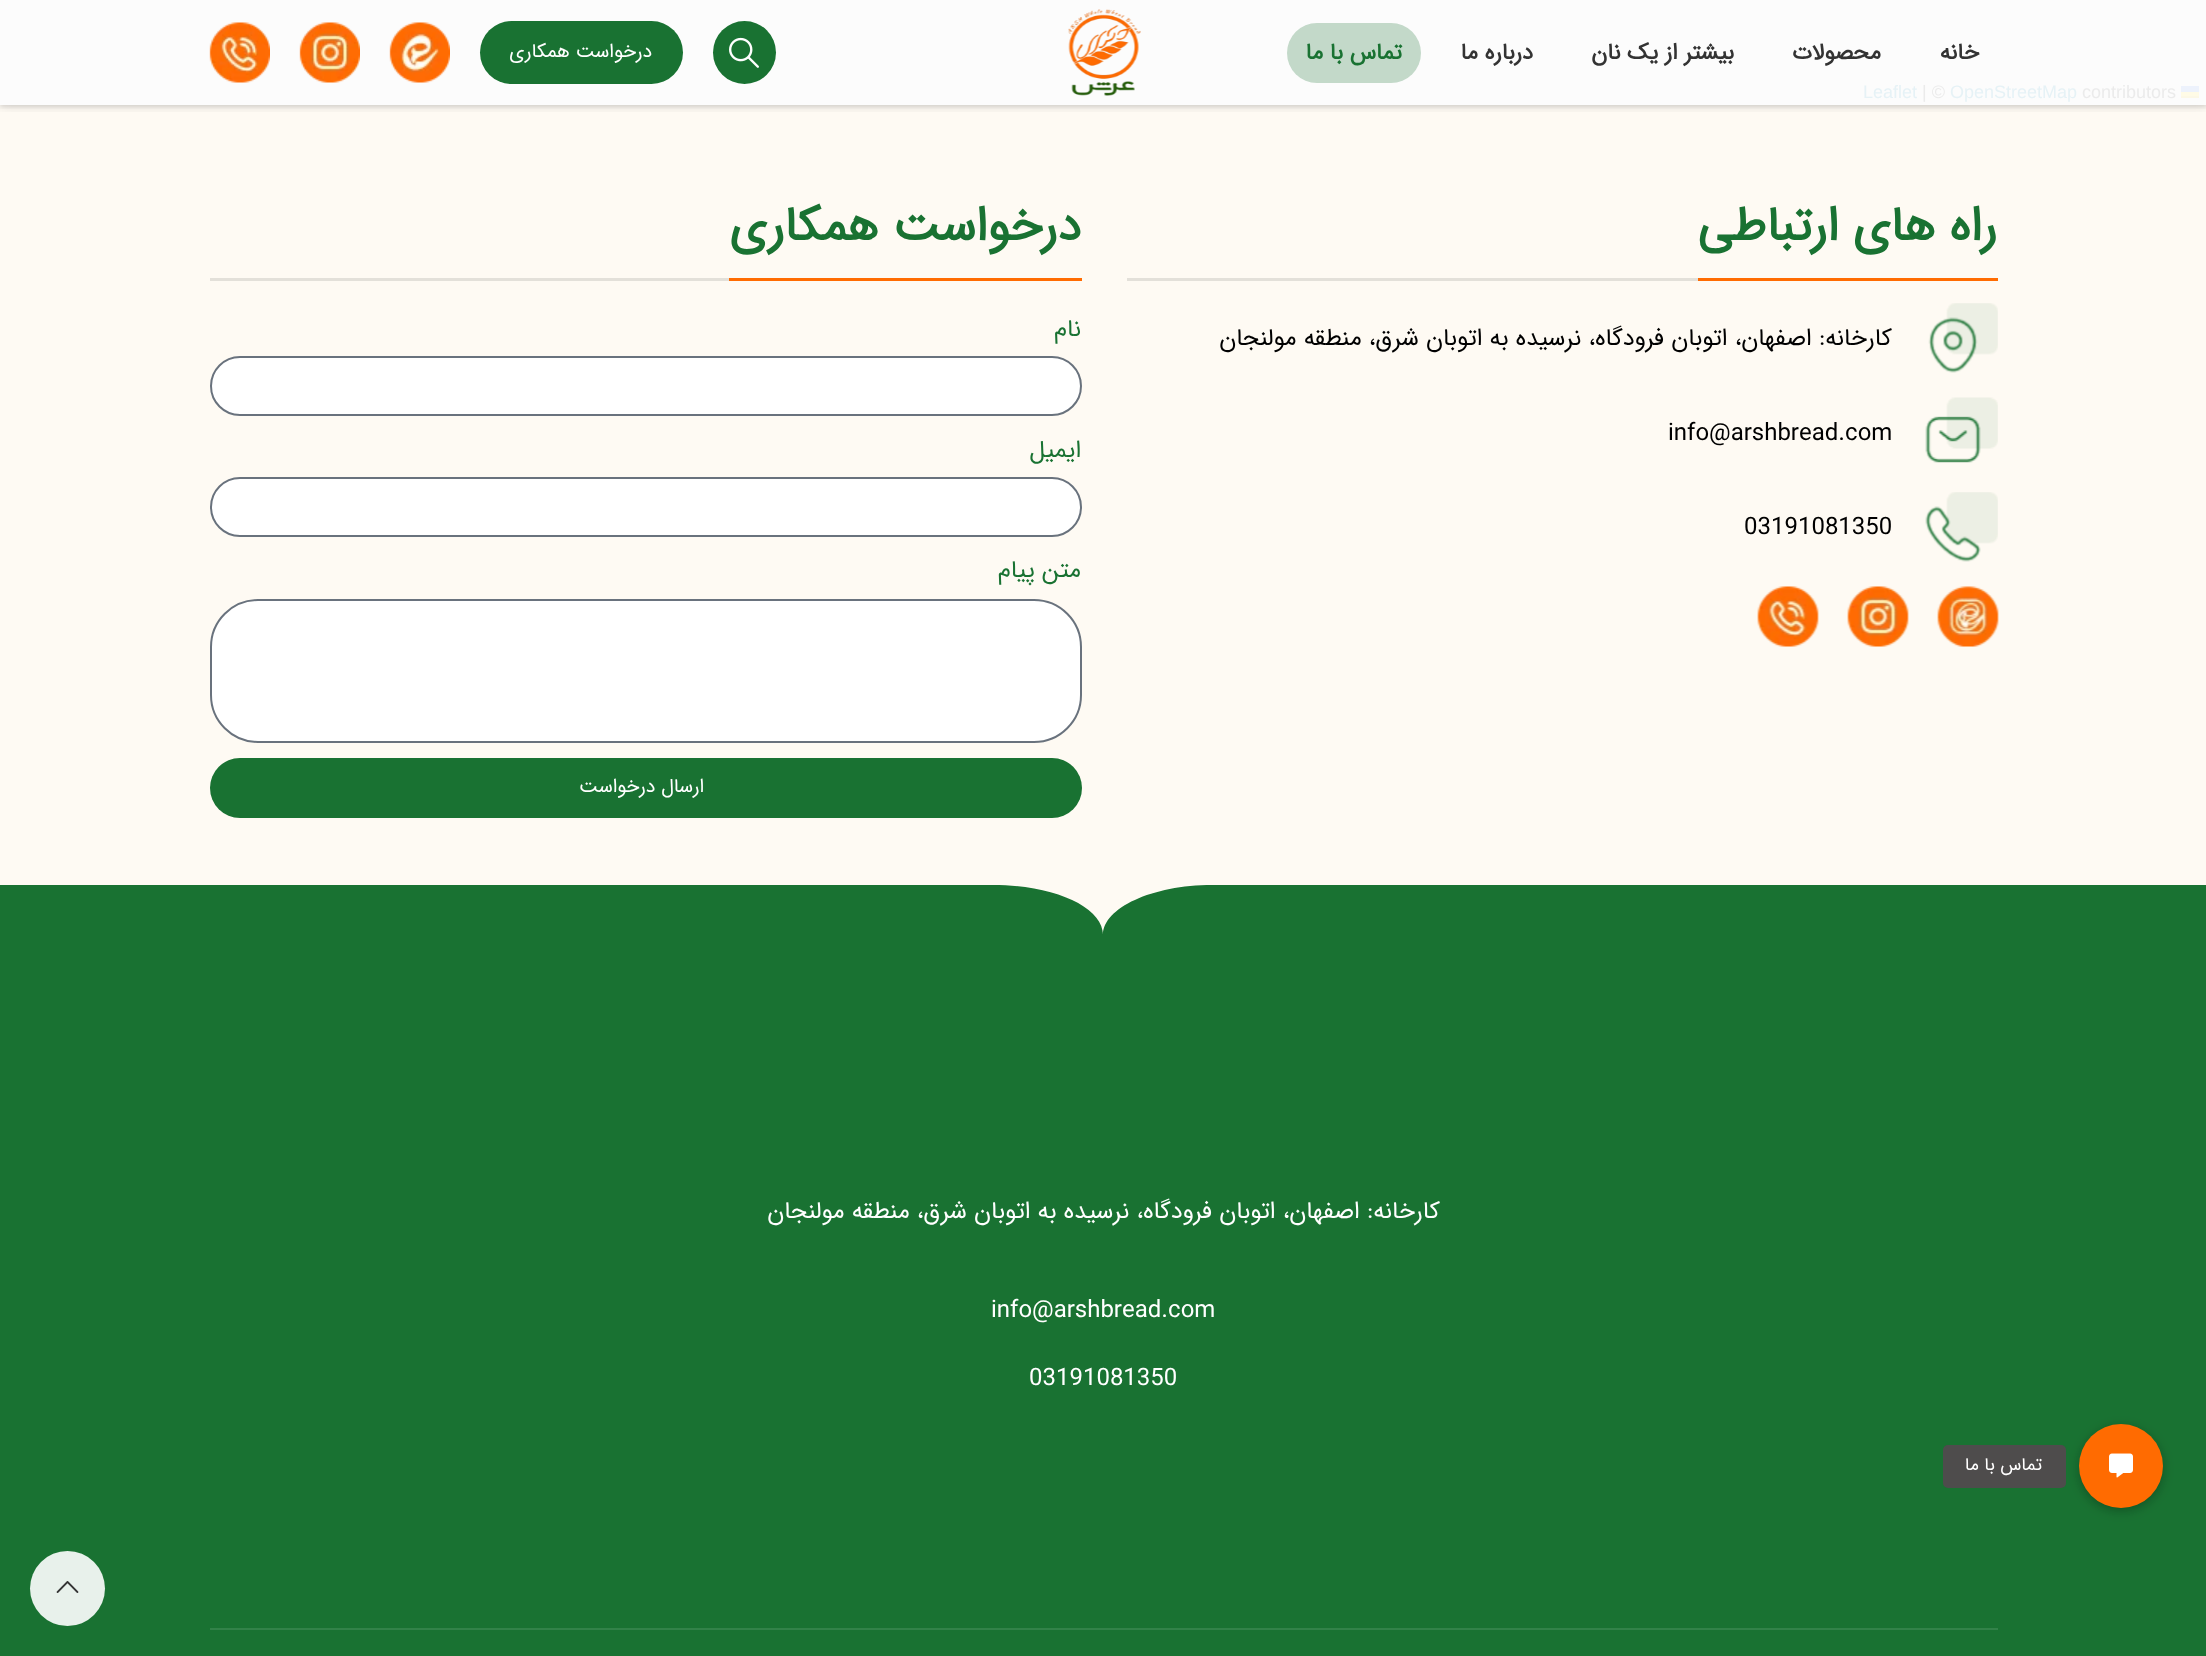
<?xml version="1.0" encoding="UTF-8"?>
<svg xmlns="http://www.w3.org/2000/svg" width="2206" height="1656">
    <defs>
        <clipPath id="clip1"><rect x="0" y="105" width="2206" height="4"/></clipPath>
        <filter id="blur1" x="-50%" y="-200%" width="200%" height="500%"><feGaussianBlur stdDeviation="2"/></filter>
        <clipPath id="clip2"><rect x="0" y="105" width="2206" height="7"/></clipPath>
        <filter id="blur2" x="-50%" y="-200%" width="200%" height="500%"><feGaussianBlur stdDeviation="6"/></filter>
        <filter id="blur3" x="-50%" y="-200%" width="200%" height="500%"><feGaussianBlur stdDeviation="7.5"/></filter>
        <filter id="blur4" x="-50%" y="-200%" width="200%" height="500%"><feGaussianBlur stdDeviation="4"/></filter>
    </defs>
    <rect width="100%" height="100%" fill="#FEFAF3"/>
    <rect x="0" y="0" width="2206" height="105" fill="#FCFCFC"/>
    <rect x="2181" y="86" width="18" height="6" fill="#EDF2FC"/>
    <rect x="2181" y="92" width="18" height="4" fill="#FFFBE6"/>
    <rect x="2181" y="96" width="18" height="2" fill="#FCF8E6"/>
    <g clip-path="url(#clip1)">
        <rect x="0" y="2" width="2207" height="105" fill="#000000" fill-opacity="0.1" filter="url(#blur1)"/>
    </g>
    <g clip-path="url(#clip2)">
        <rect x="0" y="2" width="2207" height="105" fill="#000000" fill-opacity="0.1" filter="url(#blur2)"/>
    </g>
    <text x="1979" y="59" font-family="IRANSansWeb" font-size="22.5" font-weight="700" direction="rtl" fill="#333333">خانه</text>
    <text x="1881" y="59" font-family="IRANSansWeb" font-size="22.5" font-weight="700" direction="rtl" fill="#333333">محصولات</text>
    <text x="1734" y="59" font-family="IRANSansWeb" font-size="22.5" font-weight="700" direction="rtl" fill="#333333">بیشتر از یک نان</text>
    <text x="1533" y="59" font-family="IRANSansWeb" font-size="22.5" font-weight="700" direction="rtl" fill="#333333">درباره ما</text>
    <rect x="1287" y="23" width="134" height="60" rx="30" fill="#C3D9C9"/>
    <text x="1402" y="59" font-family="IRANSansWeb" font-size="22.5" font-weight="700" direction="rtl" fill="#197232">تماس با ما</text>
    <image x="1068" y="9" width="73" height="87" href="img_01.png"/>
    <circle cx="744.5" cy="52.5" r="31.5" fill="#197232"/>
    <image x="729" y="37" width="30" height="31" href="img_02.png"/>
    <rect x="480" y="21" width="203" height="63" rx="31.5" fill="#197232"/>
    <text x="652" y="57" font-family="IRANSansWeb" font-size="19.5" direction="rtl" fill="#FFFFFF">درخواست همکاری</text>
    <image x="389" y="22" width="61" height="61" href="img_03.png"/>
    <image x="299" y="22" width="61" height="61" href="img_04.png"/>
    <image x="209" y="22" width="61" height="61" href="img_05.png"/>
    <text x="2082" y="98" font-family="Liberation Sans" font-size="18" fill="#EBEBEB">contributors</text>
    <text x="1950" y="98" font-family="Liberation Sans" font-size="18" fill="#E6F2F6">OpenStreetMap</text>
    <text x="1922" y="98" font-family="Liberation Sans" font-size="18" fill="#EBEBEB">| ©</text>
    <text x="1863" y="98" font-family="Liberation Sans" font-size="18" fill="#E6F2F6">Leaflet</text>
    <rect x="1127" y="278" width="571" height="3" fill="#E3E0D9"/>
    <rect x="1698" y="278" width="300" height="3" fill="#FF6B01"/>
    <text x="1997" y="240" font-family="IRANSansWeb" font-size="48" font-weight="700" direction="rtl" fill="#197232">راه های ارتباطی</text>
    <image x="1928" y="303" width="70" height="70" href="img_06.png"/>
    <text x="1892" y="345" font-family="IRANSansWeb" font-size="24" direction="rtl" fill="#000000">کارخانه: اصفهان، اتوبان فرودگاه، نرسیده به اتوبان شرق، منطقه مولنجان</text>
    <image x="1925" y="397" width="73" height="66" href="img_07.png"/>
    <text x="1668" y="440" font-family="IRANSansWeb" font-size="24" fill="#000000">info@arshbread.com</text>
    <image x="1925" y="492" width="73" height="70" href="img_08.png"/>
    <text x="1744" y="534" font-family="IRANSansWeb" font-size="24" fill="#000000">03191081350</text>
    <image x="1937" y="586" width="62" height="61" href="img_09.png"/>
    <image x="1847" y="586" width="62" height="61" href="img_10.png"/>
    <image x="1757" y="586" width="62" height="61" href="img_11.png"/>
    <rect x="210" y="278" width="519" height="3" fill="#E3E0D9"/>
    <rect x="729" y="278" width="353" height="3" fill="#FF6B01"/>
    <text x="1081" y="240" font-family="IRANSansWeb" font-size="48" font-weight="700" direction="rtl" fill="#197232">درخواست همکاری</text>
    <text x="1081" y="336" font-family="IRANSansWeb" font-size="24" direction="rtl" fill="#197232">نام</text>
    <rect x="211" y="357" width="870" height="58" rx="29" fill="#FFFFFF" stroke="#69727D" stroke-width="2"/>
    <text x="1081" y="457" font-family="IRANSansWeb" font-size="24" direction="rtl" fill="#197232">ایمیل</text>
    <rect x="211" y="478" width="870" height="58" rx="29" fill="#FFFFFF" stroke="#69727D" stroke-width="2"/>
    <text x="1081" y="577" font-family="IRANSansWeb" font-size="24" direction="rtl" fill="#197232">متن پیام</text>
    <rect x="211" y="600" width="870" height="142" rx="47" fill="#FFFFFF" stroke="#69727D" stroke-width="2"/>
    <rect x="210" y="758" width="872" height="60" rx="30" fill="#197232"/>
    <text x="704" y="792" font-family="IRANSansWeb" font-size="19.5" direction="rtl" fill="#FFFFFF">ارسال درخواست</text>
    <rect x="0" y="885" width="2206" height="771" fill="#197232"/>
    <path d="M -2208 876 V 885 H 993 C 1054 885 1103 907 1103 935 C 1103 908 1152 885 1212 885 H 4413 V 876 Z" fill="#FEFAF3"/>
    <text x="1440" y="1218" font-family="IRANSansWeb" font-size="24" direction="rtl" fill="#FFFFFF">کارخانه: اصفهان، اتوبان فرودگاه، نرسیده به اتوبان شرق، منطقه مولنجان</text>
    <text x="991" y="1317" font-family="IRANSansWeb" font-size="24" fill="#FFFFFF">info@arshbread.com</text>
    <text x="1029" y="1385" font-family="IRANSansWeb" font-size="24" fill="#FFFFFF">03191081350</text>
    <rect x="210" y="1628" width="1788" height="2" fill="#328249"/>
    <rect x="2079" y="1427" width="84" height="84" rx="42" fill="#000000" fill-opacity="0.12" filter="url(#blur3)"/>
    <rect x="2079" y="1427" width="84" height="84" rx="42" fill="#000000" fill-opacity="0.16" filter="url(#blur4)"/>
    <circle cx="2121" cy="1466" r="42" fill="#FF6B01"/>
    <image x="2109" y="1453" width="24" height="25" href="img_12.png"/>
    <rect x="1943" y="1445" width="123" height="43" rx="5" fill="#4E4C4C"/>
    <text x="2042" y="1470" font-family="IRANSansWeb" font-size="18" direction="rtl" fill="#FFFFFF">تماس با ما</text>
    <circle cx="67.5" cy="1588.5" r="37.5" fill="#FFFFFF" fill-opacity="0.9"/>
    <image x="56" y="1581" width="23" height="12" href="img_13.png"/>
</svg>
